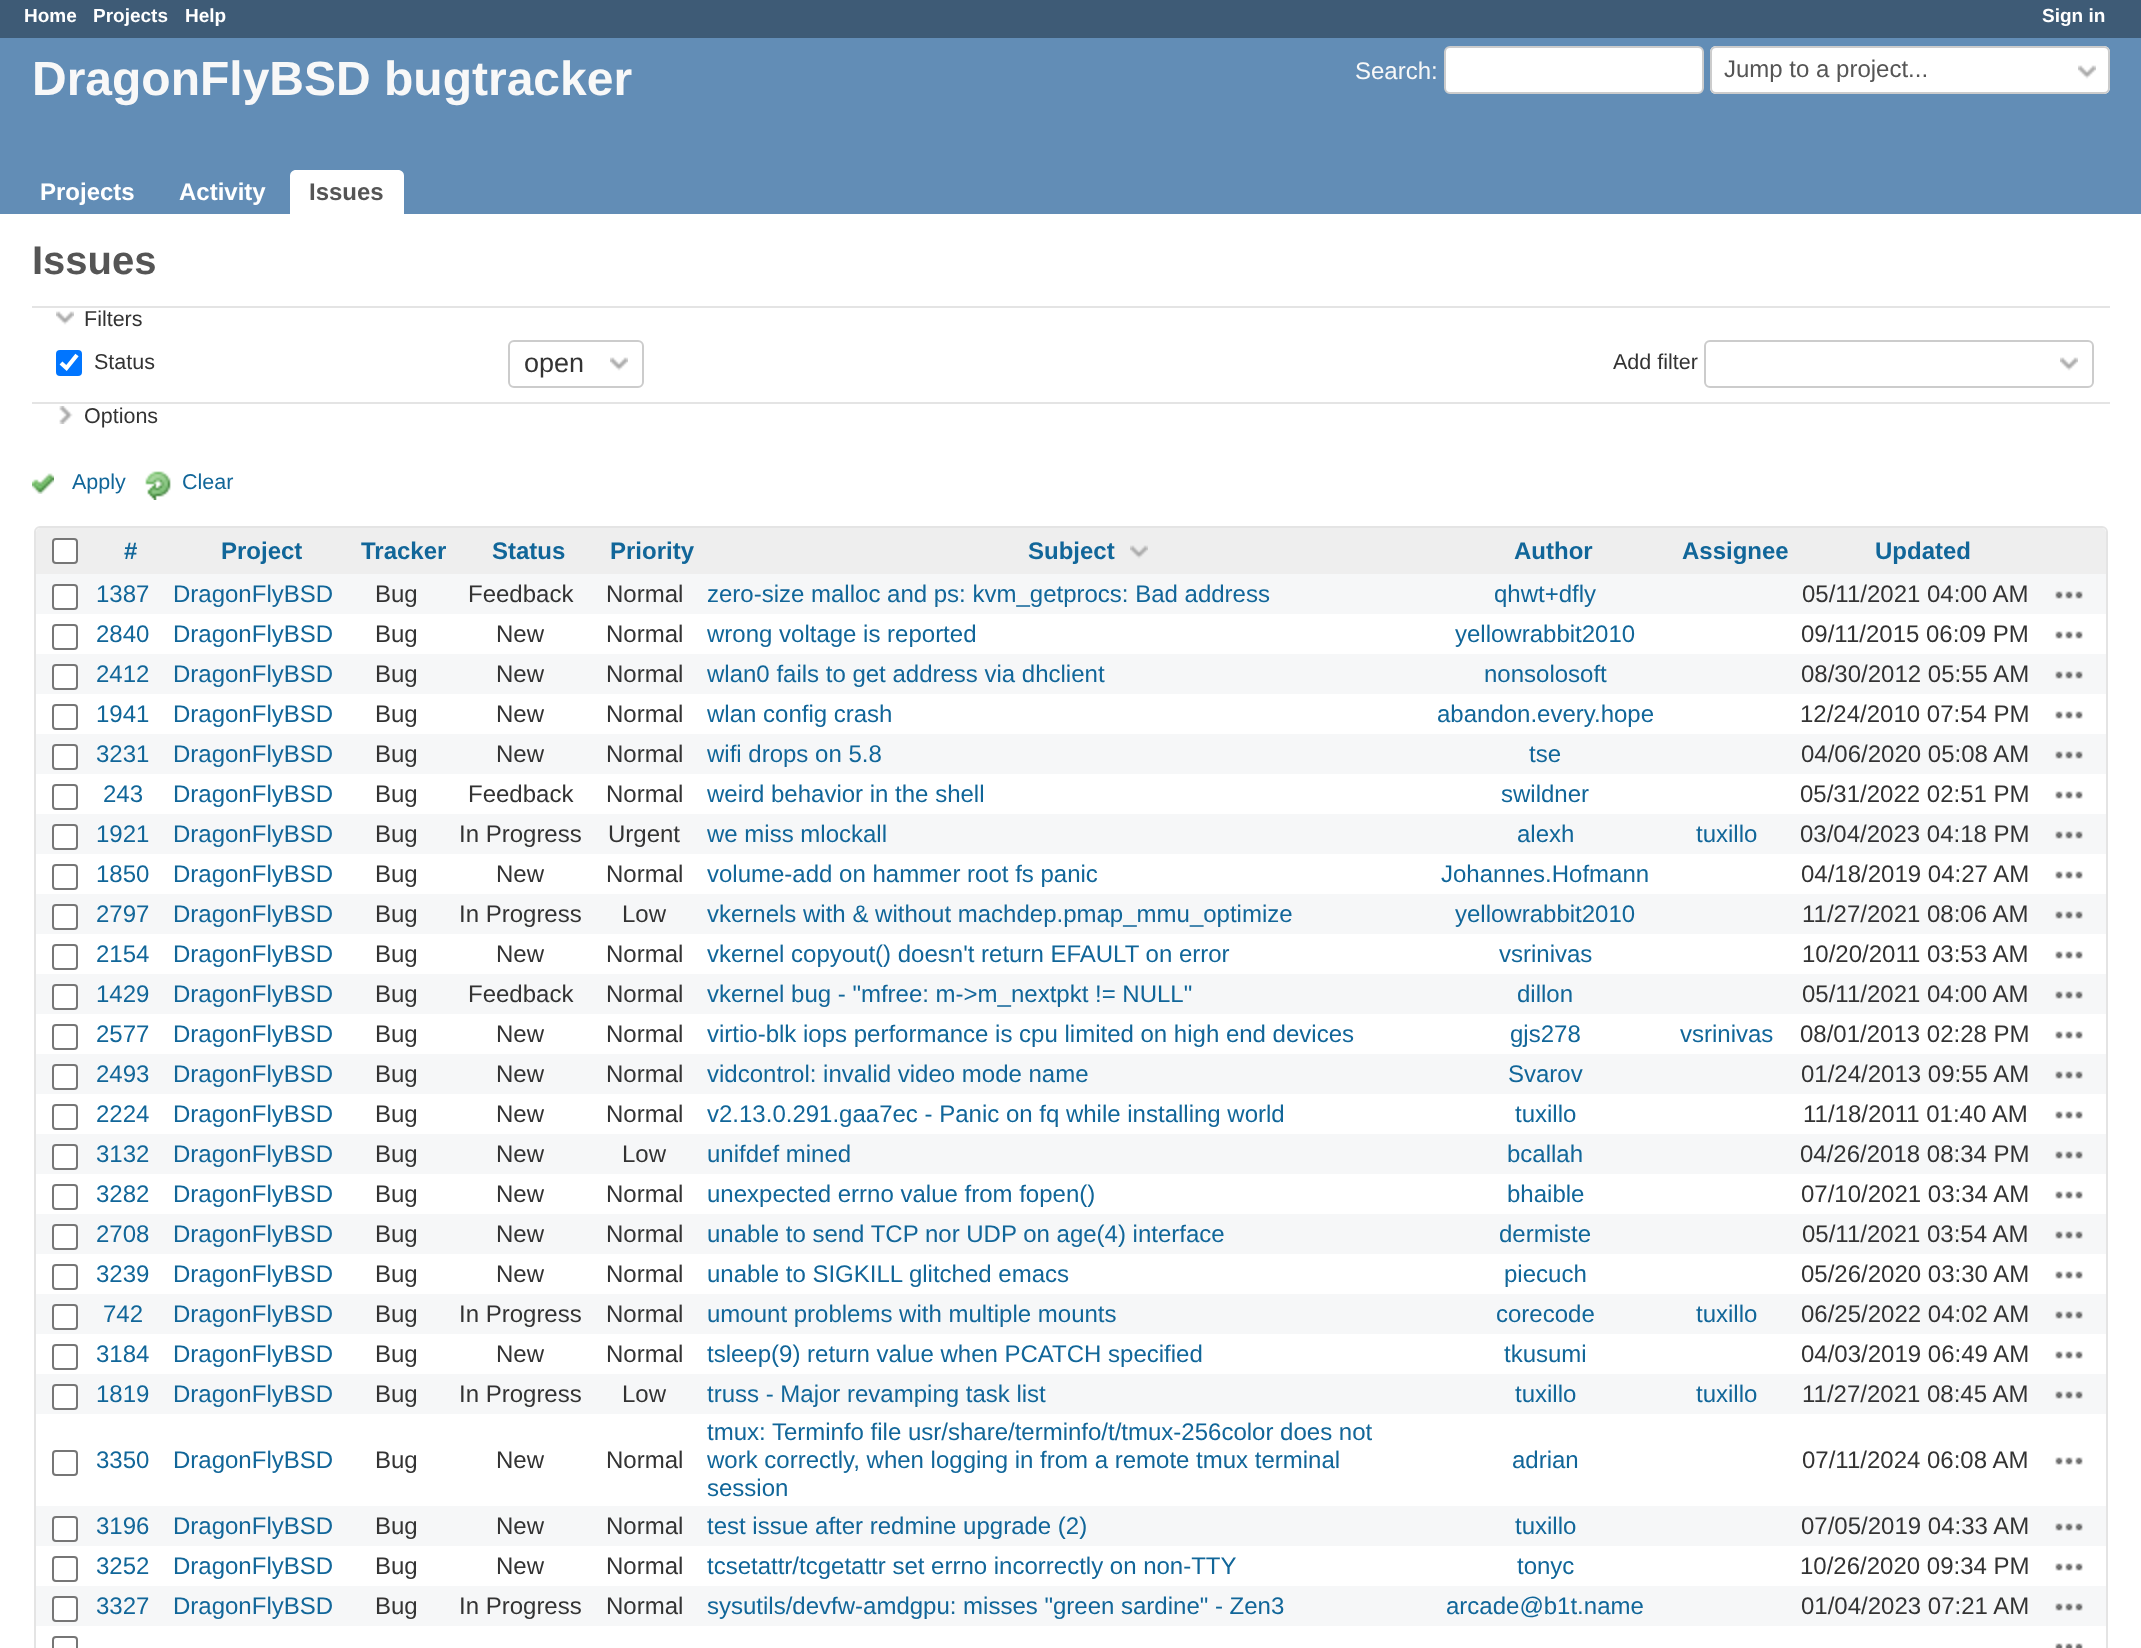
<?xml version="1.0" encoding="UTF-8"?>
<svg xmlns="http://www.w3.org/2000/svg" width="2141" height="1648">
    <rect width="100%" height="100%" fill="#FFFFFF"/>
    <rect x="0" y="0" width="2141" height="38" fill="#3E5B76"/>
    <text x="24" y="22" font-family="Liberation Sans" font-size="19" font-weight="700" fill="#FFFFFF">Home</text>
    <text x="93" y="22" font-family="Liberation Sans" font-size="19" font-weight="700" fill="#FFFFFF">Projects</text>
    <text x="185" y="22" font-family="Liberation Sans" font-size="19" font-weight="700" fill="#FFFFFF">Help</text>
    <text x="2042" y="22" font-family="Liberation Sans" font-size="19" font-weight="700" fill="#FFFFFF">Sign in</text>
    <rect x="0" y="38" width="2141" height="176" fill="#628DB6"/>
    <text x="32" y="95" font-family="Liberation Sans" font-size="48" font-weight="700" fill="#F8F8F8">DragonFlyBSD bugtracker</text>
    <text x="1355" y="79" font-family="Liberation Sans" font-size="24" fill="#F8F8F8">Search:</text>
    <rect x="1445" y="47" width="258" height="46" rx="5" fill="#FFFFFF" stroke="#CCCCCC" stroke-width="2"/>
    <rect x="1710" y="46" width="400" height="48" rx="6" fill="#FFFFFF"/>
    <image x="2078" y="65" width="18" height="14" href="img_01.png"/>
    <rect x="1711" y="47" width="398" height="46" rx="5" fill="none" stroke="#CCCCCC" stroke-width="2"/>
    <text x="1724" y="77" font-family="Liberation Sans" font-size="24" fill="#555555">Jump to a project...</text>
    <text x="40" y="200" font-family="Liberation Sans" font-size="24" font-weight="700" fill="#FFFFFF">Projects</text>
    <text x="179" y="200" font-family="Liberation Sans" font-size="24" font-weight="700" fill="#FFFFFF">Activity</text>
    <path d="M 296 170 H 398 C 401.5 170 404 172.5 404 176 V 214 H 290 V 176 C 290 172.5 292.5 170 296 170 Z" fill="#FFFFFF"/>
    <text x="309" y="200" font-family="Liberation Sans" font-size="24" font-weight="700" fill="#555555">Issues</text>
    <text x="32" y="274" font-family="Liberation Sans" font-size="40" font-weight="700" fill="#555555">Issues</text>
    <rect x="32" y="306" width="2078" height="2" fill="#E4E4E4"/>
    <image x="56" y="311" width="18" height="14" href="img_01.png"/>
    <text x="84" y="326" font-family="Liberation Sans" font-size="21.5" fill="#333333">Filters</text>
    <rect x="56" y="350" width="26" height="26" rx="4" fill="#0075FF"/>
    <path d="M 61 363 L 66.5 368 L 77 355" fill="none" stroke="#FFFFFF" stroke-width="4.2"/>
    <text x="94" y="369" font-family="Liberation Sans" font-size="21.5" fill="#333333">Status</text>
    <image x="610" y="357" width="18" height="14" href="img_01.png"/>
    <rect x="509" y="341" width="134" height="46" rx="5" fill="none" stroke="#CCCCCC" stroke-width="2"/>
    <text x="524" y="372" font-family="Liberation Sans" font-size="27" fill="#333333">open</text>
    <text x="1613" y="369" font-family="Liberation Sans" font-size="21.5" fill="#333333">Add filter</text>
    <image x="2060" y="357" width="18" height="14" href="img_01.png"/>
    <rect x="1705" y="341" width="388" height="46" rx="5" fill="none" stroke="#CCCCCC" stroke-width="2"/>
    <rect x="32" y="402" width="2078" height="2" fill="#E4E4E4"/>
    <image x="59" y="406" width="14" height="18" href="img_02.png"/>
    <text x="84" y="423" font-family="Liberation Sans" font-size="21.5" fill="#333333">Options</text>
    <image x="32" y="473" width="22" height="21" href="img_03.png"/>
    <text x="72" y="489" font-family="Liberation Sans" font-size="21.5" fill="#116699">Apply</text>
    <image x="145" y="471" width="26" height="29" href="img_04.png"/>
    <text x="182" y="489" font-family="Liberation Sans" font-size="21.5" fill="#116699">Clear</text>
    <rect x="35" y="527" width="2072" height="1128" rx="5" fill="none" stroke="#E4E4E4" stroke-width="2"/>
    <path d="M 40 528 H 92 V 574 H 36 V 532 C 36 530 38 528 40 528 Z" fill="#EEEEEE"/>
    <rect x="53" y="539" width="24" height="24" rx="3" fill="#FFFFFF" stroke="#767676" stroke-width="2"/>
    <rect x="92" y="528" width="1958" height="46" fill="#EEEEEE"/>
    <text x="124" y="559" font-family="Liberation Sans" font-size="24" font-weight="700" fill="#116699">#</text>
    <text x="221" y="559" font-family="Liberation Sans" font-size="24" font-weight="700" fill="#116699">Project</text>
    <text x="361" y="559" font-family="Liberation Sans" font-size="24" font-weight="700" fill="#116699">Tracker</text>
    <text x="492" y="559" font-family="Liberation Sans" font-size="24" font-weight="700" fill="#116699">Status</text>
    <text x="610" y="559" font-family="Liberation Sans" font-size="24" font-weight="700" fill="#116699">Priority</text>
    <text x="1028" y="559" font-family="Liberation Sans" font-size="24" font-weight="700" fill="#116699">Subject</text>
    <image x="1130" y="545" width="18" height="14" href="img_05.png"/>
    <text x="1514" y="559" font-family="Liberation Sans" font-size="24" font-weight="700" fill="#116699">Author</text>
    <text x="1682" y="559" font-family="Liberation Sans" font-size="24" font-weight="700" fill="#116699">Assignee</text>
    <text x="1875" y="559" font-family="Liberation Sans" font-size="24" font-weight="700" fill="#116699">Updated</text>
    <path d="M 2050 528 H 2102 C 2104 528 2106 530 2106 532 V 574 H 2050 Z" fill="#EEEEEE"/>
    <rect x="36" y="574" width="2070" height="40" fill="#F6F7F8"/>
    <rect x="53" y="585" width="24" height="24" rx="3" fill="#FFFFFF" stroke="#767676" stroke-width="2"/>
    <text x="96" y="602" font-family="Liberation Sans" font-size="24" fill="#116699">1387</text>
    <text x="173" y="602" font-family="Liberation Sans" font-size="24" fill="#116699">DragonFlyBSD</text>
    <text x="375" y="602" font-family="Liberation Sans" font-size="24" fill="#333333">Bug</text>
    <text x="468" y="602" font-family="Liberation Sans" font-size="24" fill="#333333">Feedback</text>
    <text x="606" y="602" font-family="Liberation Sans" font-size="24" fill="#333333">Normal</text>
    <text x="707" y="602" font-family="Liberation Sans" font-size="24" fill="#116699">zero-size malloc and ps: kvm_getprocs: Bad address</text>
    <text x="1494" y="602" font-family="Liberation Sans" font-size="24" fill="#116699">qhwt+dfly</text>
    <text x="1802" y="602" font-family="Liberation Sans" font-size="24" fill="#333333">05/11/2021 04:00 AM</text>
    <image x="2055" y="591" width="28" height="8" href="img_06.png"/>
    <rect x="53" y="625" width="24" height="24" rx="3" fill="none" stroke="#767676" stroke-width="2"/>
    <text x="96" y="642" font-family="Liberation Sans" font-size="24" fill="#116699">2840</text>
    <text x="173" y="642" font-family="Liberation Sans" font-size="24" fill="#116699">DragonFlyBSD</text>
    <text x="375" y="642" font-family="Liberation Sans" font-size="24" fill="#333333">Bug</text>
    <text x="496" y="642" font-family="Liberation Sans" font-size="24" fill="#333333">New</text>
    <text x="606" y="642" font-family="Liberation Sans" font-size="24" fill="#333333">Normal</text>
    <text x="707" y="642" font-family="Liberation Sans" font-size="24" fill="#116699">wrong voltage is reported</text>
    <text x="1455" y="642" font-family="Liberation Sans" font-size="24" fill="#116699">yellowrabbit2010</text>
    <text x="1801" y="642" font-family="Liberation Sans" font-size="24" fill="#333333">09/11/2015 06:09 PM</text>
    <image x="2055" y="631" width="28" height="8" href="img_07.png"/>
    <rect x="36" y="654" width="2070" height="40" fill="#F6F7F8"/>
    <rect x="53" y="665" width="24" height="24" rx="3" fill="#FFFFFF" stroke="#767676" stroke-width="2"/>
    <text x="96" y="682" font-family="Liberation Sans" font-size="24" fill="#116699">2412</text>
    <text x="173" y="682" font-family="Liberation Sans" font-size="24" fill="#116699">DragonFlyBSD</text>
    <text x="375" y="682" font-family="Liberation Sans" font-size="24" fill="#333333">Bug</text>
    <text x="496" y="682" font-family="Liberation Sans" font-size="24" fill="#333333">New</text>
    <text x="606" y="682" font-family="Liberation Sans" font-size="24" fill="#333333">Normal</text>
    <text x="707" y="682" font-family="Liberation Sans" font-size="24" fill="#116699">wlan0 fails to get address via dhclient</text>
    <text x="1484" y="682" font-family="Liberation Sans" font-size="24" fill="#116699">nonsolosoft</text>
    <text x="1801" y="682" font-family="Liberation Sans" font-size="24" fill="#333333">08/30/2012 05:55 AM</text>
    <image x="2055" y="671" width="28" height="8" href="img_06.png"/>
    <rect x="53" y="705" width="24" height="24" rx="3" fill="none" stroke="#767676" stroke-width="2"/>
    <text x="96" y="722" font-family="Liberation Sans" font-size="24" fill="#116699">1941</text>
    <text x="173" y="722" font-family="Liberation Sans" font-size="24" fill="#116699">DragonFlyBSD</text>
    <text x="375" y="722" font-family="Liberation Sans" font-size="24" fill="#333333">Bug</text>
    <text x="496" y="722" font-family="Liberation Sans" font-size="24" fill="#333333">New</text>
    <text x="606" y="722" font-family="Liberation Sans" font-size="24" fill="#333333">Normal</text>
    <text x="707" y="722" font-family="Liberation Sans" font-size="24" fill="#116699">wlan config crash</text>
    <text x="1437" y="722" font-family="Liberation Sans" font-size="24" fill="#116699">abandon.every.hope</text>
    <text x="1800" y="722" font-family="Liberation Sans" font-size="24" fill="#333333">12/24/2010 07:54 PM</text>
    <image x="2055" y="711" width="28" height="8" href="img_07.png"/>
    <rect x="36" y="734" width="2070" height="40" fill="#F6F7F8"/>
    <rect x="53" y="745" width="24" height="24" rx="3" fill="#FFFFFF" stroke="#767676" stroke-width="2"/>
    <text x="96" y="762" font-family="Liberation Sans" font-size="24" fill="#116699">3231</text>
    <text x="173" y="762" font-family="Liberation Sans" font-size="24" fill="#116699">DragonFlyBSD</text>
    <text x="375" y="762" font-family="Liberation Sans" font-size="24" fill="#333333">Bug</text>
    <text x="496" y="762" font-family="Liberation Sans" font-size="24" fill="#333333">New</text>
    <text x="606" y="762" font-family="Liberation Sans" font-size="24" fill="#333333">Normal</text>
    <text x="707" y="762" font-family="Liberation Sans" font-size="24" fill="#116699">wifi drops on 5.8</text>
    <text x="1529" y="762" font-family="Liberation Sans" font-size="24" fill="#116699">tse</text>
    <text x="1801" y="762" font-family="Liberation Sans" font-size="24" fill="#333333">04/06/2020 05:08 AM</text>
    <image x="2055" y="751" width="28" height="8" href="img_06.png"/>
    <rect x="53" y="785" width="24" height="24" rx="3" fill="none" stroke="#767676" stroke-width="2"/>
    <text x="103" y="802" font-family="Liberation Sans" font-size="24" fill="#116699">243</text>
    <text x="173" y="802" font-family="Liberation Sans" font-size="24" fill="#116699">DragonFlyBSD</text>
    <text x="375" y="802" font-family="Liberation Sans" font-size="24" fill="#333333">Bug</text>
    <text x="468" y="802" font-family="Liberation Sans" font-size="24" fill="#333333">Feedback</text>
    <text x="606" y="802" font-family="Liberation Sans" font-size="24" fill="#333333">Normal</text>
    <text x="707" y="802" font-family="Liberation Sans" font-size="24" fill="#116699">weird behavior in the shell</text>
    <text x="1501" y="802" font-family="Liberation Sans" font-size="24" fill="#116699">swildner</text>
    <text x="1800" y="802" font-family="Liberation Sans" font-size="24" fill="#333333">05/31/2022 02:51 PM</text>
    <image x="2055" y="791" width="28" height="8" href="img_07.png"/>
    <rect x="36" y="814" width="2070" height="40" fill="#F6F7F8"/>
    <rect x="53" y="825" width="24" height="24" rx="3" fill="#FFFFFF" stroke="#767676" stroke-width="2"/>
    <text x="96" y="842" font-family="Liberation Sans" font-size="24" fill="#116699">1921</text>
    <text x="173" y="842" font-family="Liberation Sans" font-size="24" fill="#116699">DragonFlyBSD</text>
    <text x="375" y="842" font-family="Liberation Sans" font-size="24" fill="#333333">Bug</text>
    <text x="459" y="842" font-family="Liberation Sans" font-size="24" fill="#333333">In Progress</text>
    <text x="608" y="842" font-family="Liberation Sans" font-size="24" fill="#333333">Urgent</text>
    <text x="707" y="842" font-family="Liberation Sans" font-size="24" fill="#116699">we miss mlockall</text>
    <text x="1517" y="842" font-family="Liberation Sans" font-size="24" fill="#116699">alexh</text>
    <text x="1696" y="842" font-family="Liberation Sans" font-size="24" fill="#116699">tuxillo</text>
    <text x="1800" y="842" font-family="Liberation Sans" font-size="24" fill="#333333">03/04/2023 04:18 PM</text>
    <image x="2055" y="831" width="28" height="8" href="img_06.png"/>
    <rect x="53" y="865" width="24" height="24" rx="3" fill="none" stroke="#767676" stroke-width="2"/>
    <text x="96" y="882" font-family="Liberation Sans" font-size="24" fill="#116699">1850</text>
    <text x="173" y="882" font-family="Liberation Sans" font-size="24" fill="#116699">DragonFlyBSD</text>
    <text x="375" y="882" font-family="Liberation Sans" font-size="24" fill="#333333">Bug</text>
    <text x="496" y="882" font-family="Liberation Sans" font-size="24" fill="#333333">New</text>
    <text x="606" y="882" font-family="Liberation Sans" font-size="24" fill="#333333">Normal</text>
    <text x="707" y="882" font-family="Liberation Sans" font-size="24" fill="#116699">volume-add on hammer root fs panic</text>
    <text x="1441" y="882" font-family="Liberation Sans" font-size="24" fill="#116699">Johannes.Hofmann</text>
    <text x="1801" y="882" font-family="Liberation Sans" font-size="24" fill="#333333">04/18/2019 04:27 AM</text>
    <image x="2055" y="871" width="28" height="8" href="img_07.png"/>
    <rect x="36" y="894" width="2070" height="40" fill="#F6F7F8"/>
    <rect x="53" y="905" width="24" height="24" rx="3" fill="#FFFFFF" stroke="#767676" stroke-width="2"/>
    <text x="96" y="922" font-family="Liberation Sans" font-size="24" fill="#116699">2797</text>
    <text x="173" y="922" font-family="Liberation Sans" font-size="24" fill="#116699">DragonFlyBSD</text>
    <text x="375" y="922" font-family="Liberation Sans" font-size="24" fill="#333333">Bug</text>
    <text x="459" y="922" font-family="Liberation Sans" font-size="24" fill="#333333">In Progress</text>
    <text x="622" y="922" font-family="Liberation Sans" font-size="24" fill="#333333">Low</text>
    <text x="707" y="922" font-family="Liberation Sans" font-size="24" fill="#116699">vkernels with &amp; without machdep.pmap_mmu_optimize</text>
    <text x="1455" y="922" font-family="Liberation Sans" font-size="24" fill="#116699">yellowrabbit2010</text>
    <text x="1802" y="922" font-family="Liberation Sans" font-size="24" fill="#333333">11/27/2021 08:06 AM</text>
    <image x="2055" y="911" width="28" height="8" href="img_06.png"/>
    <rect x="53" y="945" width="24" height="24" rx="3" fill="none" stroke="#767676" stroke-width="2"/>
    <text x="96" y="962" font-family="Liberation Sans" font-size="24" fill="#116699">2154</text>
    <text x="173" y="962" font-family="Liberation Sans" font-size="24" fill="#116699">DragonFlyBSD</text>
    <text x="375" y="962" font-family="Liberation Sans" font-size="24" fill="#333333">Bug</text>
    <text x="496" y="962" font-family="Liberation Sans" font-size="24" fill="#333333">New</text>
    <text x="606" y="962" font-family="Liberation Sans" font-size="24" fill="#333333">Normal</text>
    <text x="707" y="962" font-family="Liberation Sans" font-size="24" fill="#116699">vkernel copyout() doesn't return EFAULT on error</text>
    <text x="1499" y="962" font-family="Liberation Sans" font-size="24" fill="#116699">vsrinivas</text>
    <text x="1802" y="962" font-family="Liberation Sans" font-size="24" fill="#333333">10/20/2011 03:53 AM</text>
    <image x="2055" y="951" width="28" height="8" href="img_07.png"/>
    <rect x="36" y="974" width="2070" height="40" fill="#F6F7F8"/>
    <rect x="53" y="985" width="24" height="24" rx="3" fill="#FFFFFF" stroke="#767676" stroke-width="2"/>
    <text x="96" y="1002" font-family="Liberation Sans" font-size="24" fill="#116699">1429</text>
    <text x="173" y="1002" font-family="Liberation Sans" font-size="24" fill="#116699">DragonFlyBSD</text>
    <text x="375" y="1002" font-family="Liberation Sans" font-size="24" fill="#333333">Bug</text>
    <text x="468" y="1002" font-family="Liberation Sans" font-size="24" fill="#333333">Feedback</text>
    <text x="606" y="1002" font-family="Liberation Sans" font-size="24" fill="#333333">Normal</text>
    <text x="707" y="1002" font-family="Liberation Sans" font-size="24" fill="#116699">vkernel bug - "mfree: m-&gt;m_nextpkt != NULL"</text>
    <text x="1517" y="1002" font-family="Liberation Sans" font-size="24" fill="#116699">dillon</text>
    <text x="1802" y="1002" font-family="Liberation Sans" font-size="24" fill="#333333">05/11/2021 04:00 AM</text>
    <image x="2055" y="991" width="28" height="8" href="img_06.png"/>
    <rect x="53" y="1025" width="24" height="24" rx="3" fill="none" stroke="#767676" stroke-width="2"/>
    <text x="96" y="1042" font-family="Liberation Sans" font-size="24" fill="#116699">2577</text>
    <text x="173" y="1042" font-family="Liberation Sans" font-size="24" fill="#116699">DragonFlyBSD</text>
    <text x="375" y="1042" font-family="Liberation Sans" font-size="24" fill="#333333">Bug</text>
    <text x="496" y="1042" font-family="Liberation Sans" font-size="24" fill="#333333">New</text>
    <text x="606" y="1042" font-family="Liberation Sans" font-size="24" fill="#333333">Normal</text>
    <text x="707" y="1042" font-family="Liberation Sans" font-size="24" fill="#116699">virtio-blk iops performance is cpu limited on high end devices</text>
    <text x="1510" y="1042" font-family="Liberation Sans" font-size="24" fill="#116699">gjs278</text>
    <text x="1680" y="1042" font-family="Liberation Sans" font-size="24" fill="#116699">vsrinivas</text>
    <text x="1800" y="1042" font-family="Liberation Sans" font-size="24" fill="#333333">08/01/2013 02:28 PM</text>
    <image x="2055" y="1031" width="28" height="8" href="img_07.png"/>
    <rect x="36" y="1054" width="2070" height="40" fill="#F6F7F8"/>
    <rect x="53" y="1065" width="24" height="24" rx="3" fill="#FFFFFF" stroke="#767676" stroke-width="2"/>
    <text x="96" y="1082" font-family="Liberation Sans" font-size="24" fill="#116699">2493</text>
    <text x="173" y="1082" font-family="Liberation Sans" font-size="24" fill="#116699">DragonFlyBSD</text>
    <text x="375" y="1082" font-family="Liberation Sans" font-size="24" fill="#333333">Bug</text>
    <text x="496" y="1082" font-family="Liberation Sans" font-size="24" fill="#333333">New</text>
    <text x="606" y="1082" font-family="Liberation Sans" font-size="24" fill="#333333">Normal</text>
    <text x="707" y="1082" font-family="Liberation Sans" font-size="24" fill="#116699">vidcontrol: invalid video mode name</text>
    <text x="1508" y="1082" font-family="Liberation Sans" font-size="24" fill="#116699">Svarov</text>
    <text x="1801" y="1082" font-family="Liberation Sans" font-size="24" fill="#333333">01/24/2013 09:55 AM</text>
    <image x="2055" y="1071" width="28" height="8" href="img_06.png"/>
    <rect x="53" y="1105" width="24" height="24" rx="3" fill="none" stroke="#767676" stroke-width="2"/>
    <text x="96" y="1122" font-family="Liberation Sans" font-size="24" fill="#116699">2224</text>
    <text x="173" y="1122" font-family="Liberation Sans" font-size="24" fill="#116699">DragonFlyBSD</text>
    <text x="375" y="1122" font-family="Liberation Sans" font-size="24" fill="#333333">Bug</text>
    <text x="496" y="1122" font-family="Liberation Sans" font-size="24" fill="#333333">New</text>
    <text x="606" y="1122" font-family="Liberation Sans" font-size="24" fill="#333333">Normal</text>
    <text x="707" y="1122" font-family="Liberation Sans" font-size="24" fill="#116699">v2.13.0.291.gaa7ec - Panic on fq while installing world</text>
    <text x="1515" y="1122" font-family="Liberation Sans" font-size="24" fill="#116699">tuxillo</text>
    <text x="1803" y="1122" font-family="Liberation Sans" font-size="24" fill="#333333">11/18/2011 01:40 AM</text>
    <image x="2055" y="1111" width="28" height="8" href="img_07.png"/>
    <rect x="36" y="1134" width="2070" height="40" fill="#F6F7F8"/>
    <rect x="53" y="1145" width="24" height="24" rx="3" fill="#FFFFFF" stroke="#767676" stroke-width="2"/>
    <text x="96" y="1162" font-family="Liberation Sans" font-size="24" fill="#116699">3132</text>
    <text x="173" y="1162" font-family="Liberation Sans" font-size="24" fill="#116699">DragonFlyBSD</text>
    <text x="375" y="1162" font-family="Liberation Sans" font-size="24" fill="#333333">Bug</text>
    <text x="496" y="1162" font-family="Liberation Sans" font-size="24" fill="#333333">New</text>
    <text x="622" y="1162" font-family="Liberation Sans" font-size="24" fill="#333333">Low</text>
    <text x="707" y="1162" font-family="Liberation Sans" font-size="24" fill="#116699">unifdef mined</text>
    <text x="1507" y="1162" font-family="Liberation Sans" font-size="24" fill="#116699">bcallah</text>
    <text x="1800" y="1162" font-family="Liberation Sans" font-size="24" fill="#333333">04/26/2018 08:34 PM</text>
    <image x="2055" y="1151" width="28" height="8" href="img_06.png"/>
    <rect x="53" y="1185" width="24" height="24" rx="3" fill="none" stroke="#767676" stroke-width="2"/>
    <text x="96" y="1202" font-family="Liberation Sans" font-size="24" fill="#116699">3282</text>
    <text x="173" y="1202" font-family="Liberation Sans" font-size="24" fill="#116699">DragonFlyBSD</text>
    <text x="375" y="1202" font-family="Liberation Sans" font-size="24" fill="#333333">Bug</text>
    <text x="496" y="1202" font-family="Liberation Sans" font-size="24" fill="#333333">New</text>
    <text x="606" y="1202" font-family="Liberation Sans" font-size="24" fill="#333333">Normal</text>
    <text x="707" y="1202" font-family="Liberation Sans" font-size="24" fill="#116699">unexpected errno value from fopen()</text>
    <text x="1507" y="1202" font-family="Liberation Sans" font-size="24" fill="#116699">bhaible</text>
    <text x="1801" y="1202" font-family="Liberation Sans" font-size="24" fill="#333333">07/10/2021 03:34 AM</text>
    <image x="2055" y="1191" width="28" height="8" href="img_07.png"/>
    <rect x="36" y="1214" width="2070" height="40" fill="#F6F7F8"/>
    <rect x="53" y="1225" width="24" height="24" rx="3" fill="#FFFFFF" stroke="#767676" stroke-width="2"/>
    <text x="96" y="1242" font-family="Liberation Sans" font-size="24" fill="#116699">2708</text>
    <text x="173" y="1242" font-family="Liberation Sans" font-size="24" fill="#116699">DragonFlyBSD</text>
    <text x="375" y="1242" font-family="Liberation Sans" font-size="24" fill="#333333">Bug</text>
    <text x="496" y="1242" font-family="Liberation Sans" font-size="24" fill="#333333">New</text>
    <text x="606" y="1242" font-family="Liberation Sans" font-size="24" fill="#333333">Normal</text>
    <text x="707" y="1242" font-family="Liberation Sans" font-size="24" fill="#116699">unable to send TCP nor UDP on age(4) interface</text>
    <text x="1499" y="1242" font-family="Liberation Sans" font-size="24" fill="#116699">dermiste</text>
    <text x="1802" y="1242" font-family="Liberation Sans" font-size="24" fill="#333333">05/11/2021 03:54 AM</text>
    <image x="2055" y="1231" width="28" height="8" href="img_06.png"/>
    <rect x="53" y="1265" width="24" height="24" rx="3" fill="none" stroke="#767676" stroke-width="2"/>
    <text x="96" y="1282" font-family="Liberation Sans" font-size="24" fill="#116699">3239</text>
    <text x="173" y="1282" font-family="Liberation Sans" font-size="24" fill="#116699">DragonFlyBSD</text>
    <text x="375" y="1282" font-family="Liberation Sans" font-size="24" fill="#333333">Bug</text>
    <text x="496" y="1282" font-family="Liberation Sans" font-size="24" fill="#333333">New</text>
    <text x="606" y="1282" font-family="Liberation Sans" font-size="24" fill="#333333">Normal</text>
    <text x="707" y="1282" font-family="Liberation Sans" font-size="24" fill="#116699">unable to SIGKILL glitched emacs</text>
    <text x="1504" y="1282" font-family="Liberation Sans" font-size="24" fill="#116699">piecuch</text>
    <text x="1801" y="1282" font-family="Liberation Sans" font-size="24" fill="#333333">05/26/2020 03:30 AM</text>
    <image x="2055" y="1271" width="28" height="8" href="img_07.png"/>
    <rect x="36" y="1294" width="2070" height="40" fill="#F6F7F8"/>
    <rect x="53" y="1305" width="24" height="24" rx="3" fill="#FFFFFF" stroke="#767676" stroke-width="2"/>
    <text x="103" y="1322" font-family="Liberation Sans" font-size="24" fill="#116699">742</text>
    <text x="173" y="1322" font-family="Liberation Sans" font-size="24" fill="#116699">DragonFlyBSD</text>
    <text x="375" y="1322" font-family="Liberation Sans" font-size="24" fill="#333333">Bug</text>
    <text x="459" y="1322" font-family="Liberation Sans" font-size="24" fill="#333333">In Progress</text>
    <text x="606" y="1322" font-family="Liberation Sans" font-size="24" fill="#333333">Normal</text>
    <text x="707" y="1322" font-family="Liberation Sans" font-size="24" fill="#116699">umount problems with multiple mounts</text>
    <text x="1496" y="1322" font-family="Liberation Sans" font-size="24" fill="#116699">corecode</text>
    <text x="1696" y="1322" font-family="Liberation Sans" font-size="24" fill="#116699">tuxillo</text>
    <text x="1801" y="1322" font-family="Liberation Sans" font-size="24" fill="#333333">06/25/2022 04:02 AM</text>
    <image x="2055" y="1311" width="28" height="8" href="img_06.png"/>
    <rect x="53" y="1345" width="24" height="24" rx="3" fill="none" stroke="#767676" stroke-width="2"/>
    <text x="96" y="1362" font-family="Liberation Sans" font-size="24" fill="#116699">3184</text>
    <text x="173" y="1362" font-family="Liberation Sans" font-size="24" fill="#116699">DragonFlyBSD</text>
    <text x="375" y="1362" font-family="Liberation Sans" font-size="24" fill="#333333">Bug</text>
    <text x="496" y="1362" font-family="Liberation Sans" font-size="24" fill="#333333">New</text>
    <text x="606" y="1362" font-family="Liberation Sans" font-size="24" fill="#333333">Normal</text>
    <text x="707" y="1362" font-family="Liberation Sans" font-size="24" fill="#116699">tsleep(9) return value when PCATCH specified</text>
    <text x="1504" y="1362" font-family="Liberation Sans" font-size="24" fill="#116699">tkusumi</text>
    <text x="1801" y="1362" font-family="Liberation Sans" font-size="24" fill="#333333">04/03/2019 06:49 AM</text>
    <image x="2055" y="1351" width="28" height="8" href="img_07.png"/>
    <rect x="36" y="1374" width="2070" height="40" fill="#F6F7F8"/>
    <rect x="53" y="1385" width="24" height="24" rx="3" fill="#FFFFFF" stroke="#767676" stroke-width="2"/>
    <text x="96" y="1402" font-family="Liberation Sans" font-size="24" fill="#116699">1819</text>
    <text x="173" y="1402" font-family="Liberation Sans" font-size="24" fill="#116699">DragonFlyBSD</text>
    <text x="375" y="1402" font-family="Liberation Sans" font-size="24" fill="#333333">Bug</text>
    <text x="459" y="1402" font-family="Liberation Sans" font-size="24" fill="#333333">In Progress</text>
    <text x="622" y="1402" font-family="Liberation Sans" font-size="24" fill="#333333">Low</text>
    <text x="707" y="1402" font-family="Liberation Sans" font-size="24" fill="#116699">truss - Major revamping task list</text>
    <text x="1515" y="1402" font-family="Liberation Sans" font-size="24" fill="#116699">tuxillo</text>
    <text x="1696" y="1402" font-family="Liberation Sans" font-size="24" fill="#116699">tuxillo</text>
    <text x="1802" y="1402" font-family="Liberation Sans" font-size="24" fill="#333333">11/27/2021 08:45 AM</text>
    <image x="2055" y="1391" width="28" height="8" href="img_06.png"/>
    <rect x="53" y="1451" width="24" height="24" rx="3" fill="none" stroke="#767676" stroke-width="2"/>
    <text x="96" y="1468" font-family="Liberation Sans" font-size="24" fill="#116699">3350</text>
    <text x="173" y="1468" font-family="Liberation Sans" font-size="24" fill="#116699">DragonFlyBSD</text>
    <text x="375" y="1468" font-family="Liberation Sans" font-size="24" fill="#333333">Bug</text>
    <text x="496" y="1468" font-family="Liberation Sans" font-size="24" fill="#333333">New</text>
    <text x="606" y="1468" font-family="Liberation Sans" font-size="24" fill="#333333">Normal</text>
    <text font-family="Liberation Sans" font-size="24" fill="#116699">
        <tspan x="707" y="1440">tmux: Terminfo file usr/share/terminfo/t/tmux-256color does not</tspan>
        <tspan x="707" y="1468">work correctly, when logging in from a remote tmux terminal</tspan>
        <tspan x="707" y="1496">session</tspan>
    </text>
    <text x="1512" y="1468" font-family="Liberation Sans" font-size="24" fill="#116699">adrian</text>
    <text x="1802" y="1468" font-family="Liberation Sans" font-size="24" fill="#333333">07/11/2024 06:08 AM</text>
    <image x="2055" y="1457" width="28" height="8" href="img_07.png"/>
    <rect x="36" y="1506" width="2070" height="40" fill="#F6F7F8"/>
    <rect x="53" y="1517" width="24" height="24" rx="3" fill="#FFFFFF" stroke="#767676" stroke-width="2"/>
    <text x="96" y="1534" font-family="Liberation Sans" font-size="24" fill="#116699">3196</text>
    <text x="173" y="1534" font-family="Liberation Sans" font-size="24" fill="#116699">DragonFlyBSD</text>
    <text x="375" y="1534" font-family="Liberation Sans" font-size="24" fill="#333333">Bug</text>
    <text x="496" y="1534" font-family="Liberation Sans" font-size="24" fill="#333333">New</text>
    <text x="606" y="1534" font-family="Liberation Sans" font-size="24" fill="#333333">Normal</text>
    <text x="707" y="1534" font-family="Liberation Sans" font-size="24" fill="#116699">test issue after redmine upgrade (2)</text>
    <text x="1515" y="1534" font-family="Liberation Sans" font-size="24" fill="#116699">tuxillo</text>
    <text x="1801" y="1534" font-family="Liberation Sans" font-size="24" fill="#333333">07/05/2019 04:33 AM</text>
    <image x="2055" y="1523" width="28" height="8" href="img_06.png"/>
    <rect x="53" y="1557" width="24" height="24" rx="3" fill="none" stroke="#767676" stroke-width="2"/>
    <text x="96" y="1574" font-family="Liberation Sans" font-size="24" fill="#116699">3252</text>
    <text x="173" y="1574" font-family="Liberation Sans" font-size="24" fill="#116699">DragonFlyBSD</text>
    <text x="375" y="1574" font-family="Liberation Sans" font-size="24" fill="#333333">Bug</text>
    <text x="496" y="1574" font-family="Liberation Sans" font-size="24" fill="#333333">New</text>
    <text x="606" y="1574" font-family="Liberation Sans" font-size="24" fill="#333333">Normal</text>
    <text x="707" y="1574" font-family="Liberation Sans" font-size="24" fill="#116699">tcsetattr/tcgetattr set errno incorrectly on non-TTY</text>
    <text x="1517" y="1574" font-family="Liberation Sans" font-size="24" fill="#116699">tonyc</text>
    <text x="1800" y="1574" font-family="Liberation Sans" font-size="24" fill="#333333">10/26/2020 09:34 PM</text>
    <image x="2055" y="1563" width="28" height="8" href="img_07.png"/>
    <rect x="36" y="1586" width="2070" height="40" fill="#F6F7F8"/>
    <rect x="53" y="1597" width="24" height="24" rx="3" fill="#FFFFFF" stroke="#767676" stroke-width="2"/>
    <text x="96" y="1614" font-family="Liberation Sans" font-size="24" fill="#116699">3327</text>
    <text x="173" y="1614" font-family="Liberation Sans" font-size="24" fill="#116699">DragonFlyBSD</text>
    <text x="375" y="1614" font-family="Liberation Sans" font-size="24" fill="#333333">Bug</text>
    <text x="459" y="1614" font-family="Liberation Sans" font-size="24" fill="#333333">In Progress</text>
    <text x="606" y="1614" font-family="Liberation Sans" font-size="24" fill="#333333">Normal</text>
    <text x="707" y="1614" font-family="Liberation Sans" font-size="24" fill="#116699">sysutils/devfw-amdgpu: misses "green sardine" - Zen3</text>
    <text x="1446" y="1614" font-family="Liberation Sans" font-size="24" fill="#116699">arcade@b1t.name</text>
    <text x="1801" y="1614" font-family="Liberation Sans" font-size="24" fill="#333333">01/04/2023 07:21 AM</text>
    <image x="2055" y="1603" width="28" height="8" href="img_06.png"/>
    <rect x="53" y="1637" width="24" height="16" rx="3" fill="none" stroke="#767676" stroke-width="2"/>
    <image x="2055" y="1643" width="28" height="5" href="img_08.png"/>
</svg>
